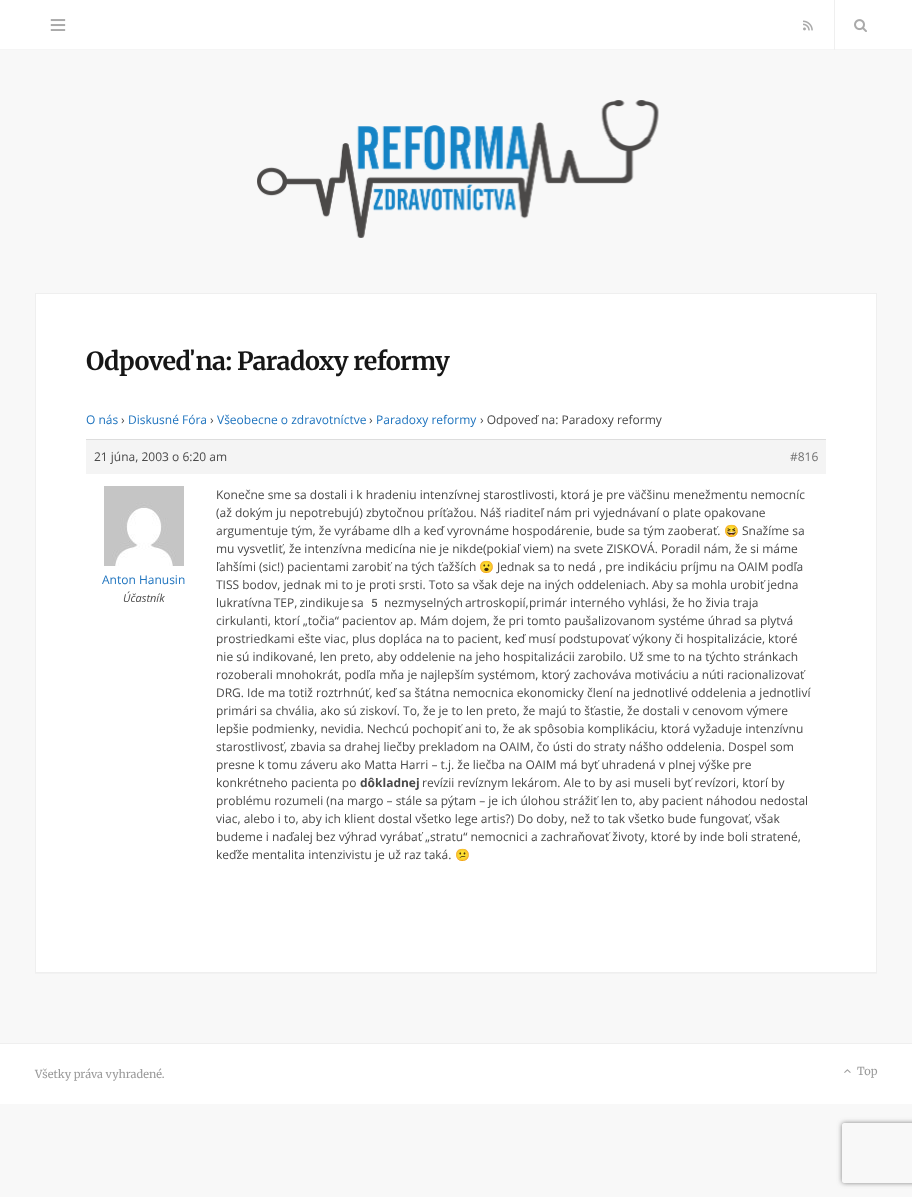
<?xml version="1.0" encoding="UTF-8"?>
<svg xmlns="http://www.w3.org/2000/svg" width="912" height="1197">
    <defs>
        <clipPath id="clip1"><path d="M 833 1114 H 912 V 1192 H 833 Z M 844 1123 H 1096 C 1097 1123 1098 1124 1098 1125 V 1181 C 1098 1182 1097 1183 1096 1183 H 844 C 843 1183 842 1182 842 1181 V 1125 C 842 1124 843 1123 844 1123 Z" clip-rule="evenodd"/></clipPath>
        <filter id="blur1" x="-50%" y="-200%" width="200%" height="500%"><feGaussianBlur stdDeviation="2.5"/></filter>
    </defs>
    <rect width="100%" height="100%" fill="#F8F8F8"/>
    <rect x="0" y="0" width="912" height="49" fill="#FFFFFF"/>
    <rect x="0" y="49" width="912" height="1" fill="#F5F5F5"/>
    <image x="50" y="19" width="16" height="12" href="img_01.png"/>
    <image x="803" y="20" width="10" height="11" href="img_02.png"/>
    <rect x="834" y="0" width="1" height="50" fill="#EFEFEF"/>
    <image x="854" y="19" width="13" height="13" href="img_03.png"/>
    <image x="257" y="100" width="402" height="138" href="img_04.png"/>
    <rect x="35" y="973" width="842" height="1" fill="#F2F2F2"/>
    <rect x="35.5" y="293.5" width="841" height="679" fill="#FFFFFF" stroke="#EFEFEF"/>
    <text x="86" y="370" font-family="Merriweather" font-size="25" font-weight="700" letter-spacing="-0.6" fill="#161616">Odpoveď na: Paradoxy reformy</text>
    <text x="86" y="424" font-family="Open Sans" font-size="12" fill="#1E73BE">O nás</text>
    <text x="121" y="424" font-family="Open Sans" font-size="12" fill="#494949">›</text>
    <text x="128" y="424" font-family="Open Sans" font-size="12" fill="#1E73BE">Diskusné Fóra</text>
    <text x="210" y="424" font-family="Open Sans" font-size="12" fill="#494949">›</text>
    <text x="217" y="424" font-family="Open Sans" font-size="12" fill="#1E73BE">Všeobecne o zdravotníctve</text>
    <text x="369" y="424" font-family="Open Sans" font-size="12" fill="#494949">›</text>
    <text x="376" y="424" font-family="Open Sans" font-size="12" fill="#1E73BE">Paradoxy reformy</text>
    <text x="480" y="424" font-family="Open Sans" font-size="12" fill="#494949">› Odpoveď na: Paradoxy reformy</text>
    <rect x="86" y="440" width="740" height="34" fill="#F4F4F4"/>
    <rect x="86" y="439" width="740" height="1" fill="#DDDDDD"/>
    <text x="94" y="461" font-family="Open Sans" font-size="12" fill="#494949">21 júna, 2003 o 6:20 am</text>
    <text x="790" y="461" font-family="Open Sans" font-size="12" fill="#707070">#816</text>
    <image x="104" y="486" width="80" height="80" href="img_05.png"/>
    <text x="102" y="584" font-family="Open Sans" font-size="12" fill="#1E73BE">Anton Hanusin</text>
    <text x="123" y="602" font-family="Open Sans" font-size="11" font-style="italic" fill="#494949">Účastník</text>
    <text font-family="Open Sans" font-size="12" fill="#494949">
        <tspan x="216" y="499">Konečne sme sa dostali i k hradeniu intenzívnej starostlivosti, ktorá je pre väčšinu menežmentu nemocníc</tspan>
        <tspan x="216" y="517">(až dokým ju nepotrebujú) zbytočnou príťažou. Náš riaditeľ nám pri vyjednávaní o plate opakovane</tspan>
        <tspan x="216" y="535">argumentuje tým, že vyrábame dlh a keď vyrovnáme hospodárenie, bude sa tým zaoberať.</tspan>
    </text>
    <text x="724" y="535" font-family="Noto Color Emoji" font-size="12" fill="#494949">😆</text>
    <text x="742" y="535" font-family="Open Sans" font-size="12" fill="#494949">Snažíme sa</text>
    <text font-family="Open Sans" font-size="12" fill="#494949">
        <tspan x="216" y="553">mu vysvetliť, že intenzívna medicína nie je nikde(pokiaľ viem) na svete ZISKOVÁ. Poradil nám, že si máme</tspan>
        <tspan x="216" y="571">ľahšími (sic!) pacientami zarobiť na tých ťažších</tspan>
    </text>
    <text x="479" y="571" font-family="Noto Color Emoji" font-size="12" fill="#494949">😮</text>
    <text x="497" y="571" font-family="Open Sans" font-size="12" fill="#494949">Jednak sa to nedá , pre indikáciu príjmu na OAIM podľa</text>
    <text font-family="Open Sans" font-size="12" fill="#494949">
        <tspan x="216" y="589">TISS bodov, jednak mi to je proti srsti. Toto sa však deje na iných oddeleniach. Aby sa mohla urobiť jedna</tspan>
        <tspan x="216" y="607" word-spacing="-1">lukratívna TEP, zindikuje sa</tspan>
    </text>
    <text x="367" y="607" font-family="Noto Color Emoji" font-size="12" fill="#494949">5</text>
    <text x="384" y="607" word-spacing="-1" font-family="Open Sans" font-size="12" fill="#494949">nezmyselných artroskopií,</text>
    <text x="529" y="607" font-family="Open Sans" font-size="12" fill="#494949">primár interného vyhlási, že ho živia traja</text>
    <text font-family="Open Sans" font-size="12" fill="#494949">
        <tspan x="216" y="625">cirkulanti, ktorí „točia“ pacientov ap. Mám dojem, že pri tomto paušalizovanom systéme úhrad sa plytvá</tspan>
        <tspan x="216" y="643">prostriedkami ešte viac, plus dopláca na to pacient, keď musí podstupovať výkony či hospitalizácie, ktoré</tspan>
        <tspan x="216" y="661">nie sú indikované, len preto, aby oddelenie na jeho hospitalizácii zarobilo. Už sme to na týchto stránkach</tspan>
        <tspan x="216" y="679">rozoberali mnohokrát, podľa mňa je najlepším systémom, ktorý zachováva motiváciu a núti racionalizovať</tspan>
        <tspan x="216" y="697">DRG. Ide ma totiž roztrhnúť, keď sa štátna nemocnica ekonomicky člení na jednotlivé oddelenia a jednotliví</tspan>
        <tspan x="216" y="715">primári sa chvália, ako sú ziskoví. To, že je to len preto, že majú to šťastie, že dostali v cenovom výmere</tspan>
        <tspan x="216" y="733">lepšie podmienky, nevidia. Nechcú pochopiť ani to, že ak spôsobia komplikáciu, ktorá vyžaduje intenzívnu</tspan>
        <tspan x="216" y="751">starostlivosť, zbavia sa drahej liečby prekladom na OAIM, čo ústi do straty nášho oddelenia. Dospel som</tspan>
        <tspan x="216" y="769">presne k tomu záveru ako Matta Harri – t.j. že liečba na OAIM má byť uhradená v plnej výške pre</tspan>
        <tspan x="216" y="787">konkrétneho pacienta po</tspan>
    </text>
    <text x="360" y="787" font-family="Open Sans" font-size="12" font-weight="700" fill="#494949">dôkladnej</text>
    <text x="422" y="787" font-family="Open Sans" font-size="12" fill="#494949">revízii revíznym lekárom. Ale to by asi museli byť revízori, ktorí by</text>
    <text font-family="Open Sans" font-size="12" fill="#494949">
        <tspan x="216" y="805">problému rozumeli (na margo – stále sa pýtam – je ich úlohou strážiť len to, aby pacient náhodou nedostal</tspan>
        <tspan x="216" y="823">viac, alebo i to, aby ich klient dostal všetko lege artis?) Do doby, než to tak všetko bude fungovať, však</tspan>
        <tspan x="216" y="841">budeme i naďalej bez výhrad vyrábať „stratu“ nemocnici a zachraňovať životy, ktoré by inde boli stratené,</tspan>
        <tspan x="216" y="859">keďže mentalita intenzivistu je už raz taká.</tspan>
    </text>
    <text x="455" y="859" font-family="Noto Color Emoji" font-size="12" fill="#494949">😕</text>
    <rect x="0" y="1044" width="912" height="60" fill="#FFFFFF"/>
    <rect x="0" y="1043" width="912" height="1" fill="#EFEFEF"/>
    <text x="35" y="1078" font-family="Merriweather" font-size="11" fill="#9B9B9B">Všetky práva vyhradené.</text>
    <image x="844" y="1069" width="7" height="4" href="img_06.png"/>
    <text x="857" y="1075" font-family="Merriweather" font-size="11" fill="#9B9B9B">Top</text>
    <g clip-path="url(#clip1)">
        <rect x="842" y="1123" width="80" height="60" rx="2" fill="#808080" filter="url(#blur1)"/>
    </g>
</svg>
